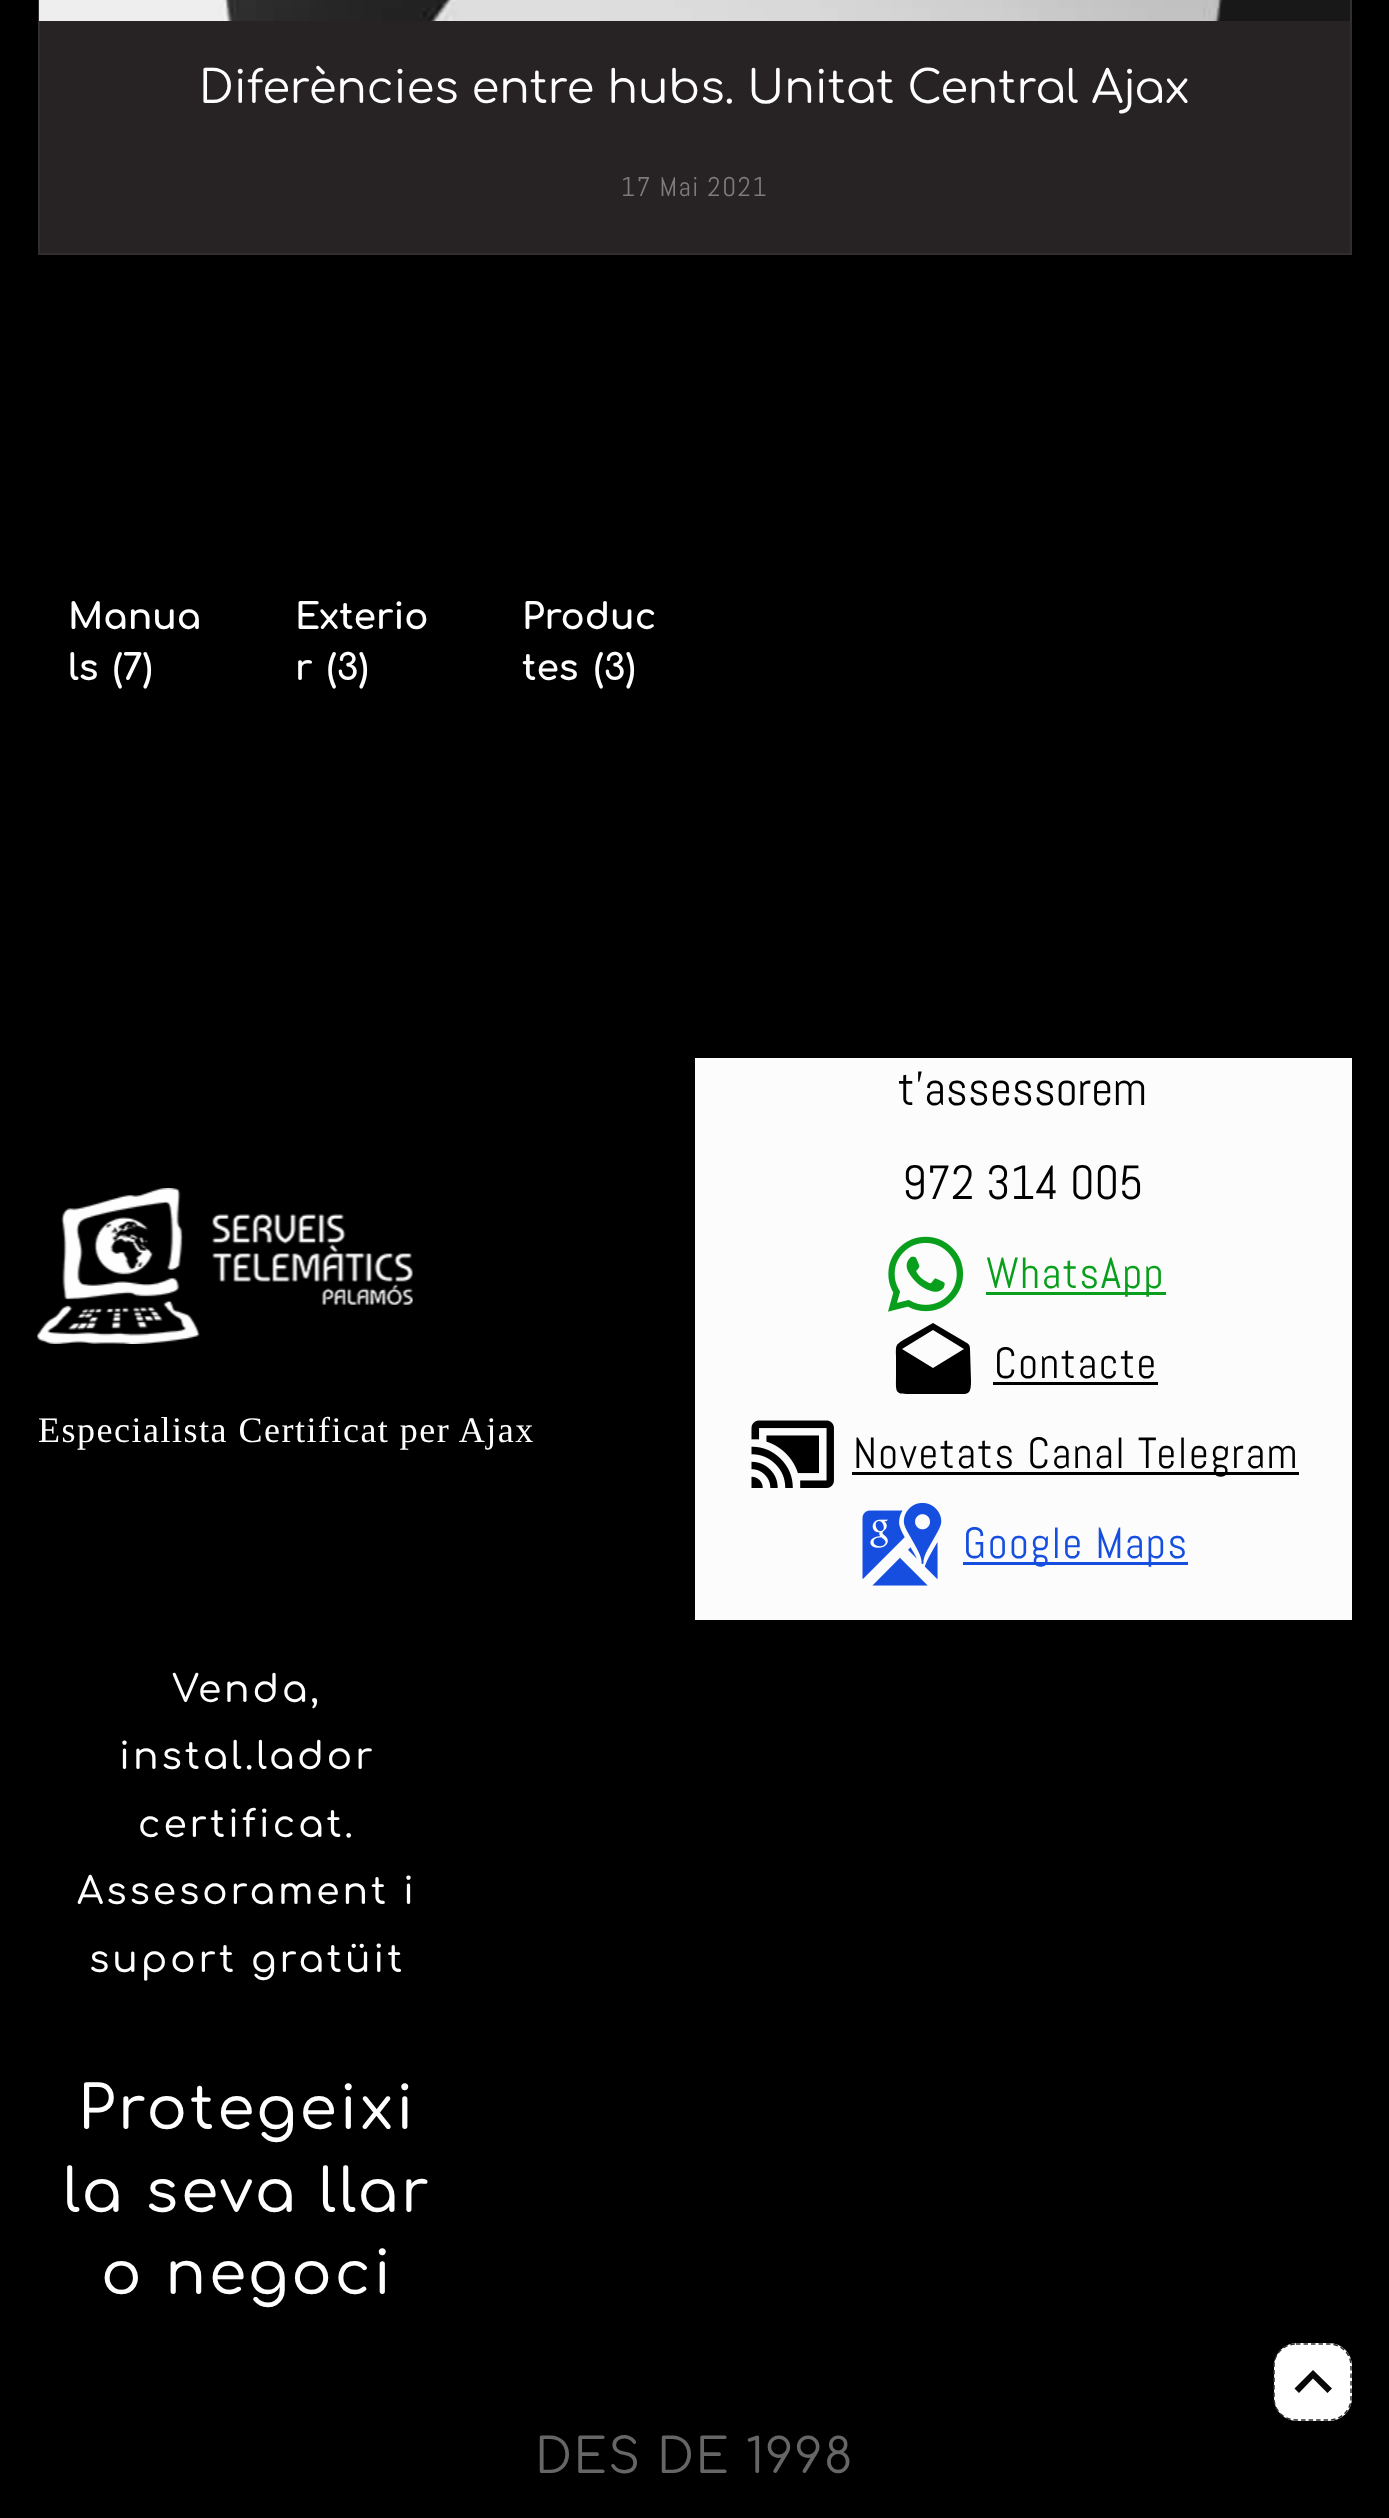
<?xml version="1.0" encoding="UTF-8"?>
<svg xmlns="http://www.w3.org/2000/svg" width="1389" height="2518">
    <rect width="100%" height="100%" fill="#000000"/>
    <rect x="40" y="21" width="1310" height="232" fill="#272324"/>
    <rect x="39" y="-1" width="1312" height="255" fill="none" stroke="#322E2F" stroke-width="2"/>
    <image x="39" y="0" width="1311" height="21" href="img_01.png"/>
    <text x="199" y="103" font-family="Comfortaa" font-size="45" fill="#FFFFFF">Diferències entre hubs. Unitat Central Ajax</text>
    <text x="621" y="196" font-family="Abel" font-size="27" letter-spacing="1.5" fill="#7D7B7C">17 Mai 2021</text>
    <text font-family="Comfortaa" font-size="36" font-weight="700" fill="#FFFFFF">
        <tspan x="68" y="629">Manua</tspan>
        <tspan x="68" y="680">ls</tspan>
    </text>
    <text x="113" y="680" font-family="Comfortaa" font-size="36" font-weight="700" fill="#FFFFFF">(7)</text>
    <text font-family="Comfortaa" font-size="36" font-weight="700" fill="#FFFFFF">
        <tspan x="295" y="629">Exterio</tspan>
        <tspan x="295" y="680">r</tspan>
    </text>
    <text x="327" y="680" font-family="Comfortaa" font-size="36" font-weight="700" fill="#FFFFFF">(3)</text>
    <text font-family="Comfortaa" font-size="36" font-weight="700" fill="#FFFFFF">
        <tspan x="522" y="629">Produc</tspan>
        <tspan x="522" y="680">tes</tspan>
    </text>
    <text x="594" y="680" font-family="Comfortaa" font-size="36" font-weight="700" fill="#FFFFFF">(3)</text>
    <image x="37" y="1188" width="376" height="156" href="img_02.png"/>
    <text x="38" y="1442" font-family="Liberation Serif" font-size="36" letter-spacing="1.5" fill="#FFFFFF">Especialista Certificat per Ajax</text>
    <rect x="695" y="1058" width="657" height="562" fill="#FCFCFC"/>
    <text x="898" y="1105" font-family="Abel" font-size="48" fill="#000000">t'assessorem</text>
    <text x="902" y="1199" font-family="Abel" font-size="48" fill="#000000">972 314 005</text>
    <image x="888" y="1236" width="76" height="76" href="img_03.png"/>
    <rect x="986" y="1292" width="180" height="3" fill="#099E1B"/>
    <text x="986" y="1288" font-family="Abel" font-size="43.5" letter-spacing="1.5" fill="#099E1B">WhatsApp</text>
    <path d="M 970 1349 L 971 1381 C 971 1396 968 1394 953 1394 H 913 C 894 1394 896 1394 896 1374 V 1356 C 896 1345 895 1345 905 1339 L 933 1323 L 967 1343 C 969 1344 970 1346 970 1349 Z M 933 1368 L 964 1349 L 933 1330 L 902 1349 Z" fill="#000000"/>
    <text x="994" y="1378" font-family="Abel" font-size="43.5" letter-spacing="1.5" fill="#000000">Contacte</text>
    <rect x="993" y="1382" width="165" height="3" fill="#000000"/>
    <image x="751" y="1420" width="83" height="68" href="img_04.png"/>
    <rect x="852" y="1472" width="447" height="3" fill="#000000"/>
    <text x="853" y="1468" font-family="Abel" font-size="43.5" letter-spacing="1.5" fill="#000000">Novetats Canal Telegram</text>
    <image x="862" y="1502" width="80" height="84" href="img_05.png"/>
    <rect x="963" y="1562" width="225" height="3" fill="#164FE0"/>
    <text x="963" y="1558" font-family="Abel" font-size="43.5" letter-spacing="1.5" fill="#164FE0">Google Maps</text>
    <text x="172" y="1702" font-family="Comfortaa" font-size="37.5" font-weight="500" letter-spacing="3" fill="#FFFFFF">Venda,</text>
    <text x="119" y="1769" font-family="Comfortaa" font-size="37.5" font-weight="500" letter-spacing="3" fill="#FFFFFF">instal.lador</text>
    <text x="138" y="1837" font-family="Comfortaa" font-size="37.5" font-weight="500" letter-spacing="3" fill="#FFFFFF">certificat.</text>
    <text x="77" y="1904" font-family="Comfortaa" font-size="37.5" font-weight="500" letter-spacing="3" fill="#FFFFFF">Assesorament i</text>
    <text x="89" y="1972" font-family="Comfortaa" font-size="37.5" font-weight="500" letter-spacing="3" fill="#FFFFFF">suport gratüit</text>
    <text x="78" y="2129" font-family="Comfortaa" font-size="60" font-weight="500" letter-spacing="3" fill="#FFFFFF">Protegeixi</text>
    <text x="63" y="2212" font-family="Comfortaa" font-size="60" font-weight="500" letter-spacing="3" fill="#FFFFFF">la seva llar</text>
    <text x="101" y="2294" font-family="Comfortaa" font-size="60" font-weight="500" letter-spacing="3" fill="#FFFFFF">o negoci</text>
    <text x="535" y="2473" font-family="Comfortaa" font-size="48" letter-spacing="1.5" fill="#666666">DES DE 1998</text>
    <rect x="1274" y="2343" width="78" height="78" rx="23" fill="#FFFFFF"/>
    <path d="M 1296 2344 H 1329 C 1341 2344 1351 2353.5 1351 2365.5 V 2398.5 C 1351 2410.5 1341 2420 1329 2420 H 1296 C 1284 2420 1274 2410.5 1274 2398.5 V 2365.5 C 1274 2353.5 1284 2344 1296 2344 Z" fill="none" stroke="#322E2F" stroke-width="1.5" stroke-dasharray="4.5 3"/>
    <path d="M 1313 2370 L 1332 2388.5 L 1327.5 2393 L 1313 2378.5 L 1299 2393 L 1294.5 2388.5 Z" fill="#080808"/>
</svg>
